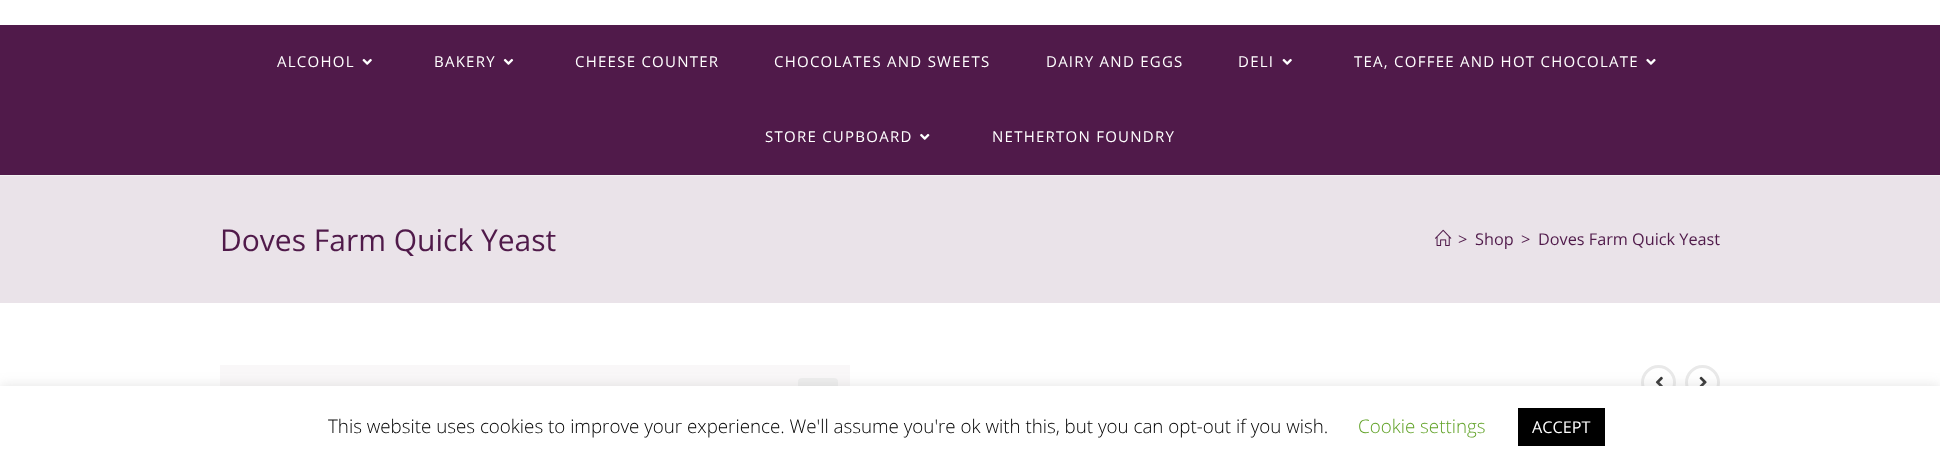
<?xml version="1.0" encoding="UTF-8"?>
<svg xmlns="http://www.w3.org/2000/svg" width="1940" height="467">
    <defs>
        <filter id="blur1" x="-50%" y="-200%" width="200%" height="500%"><feGaussianBlur stdDeviation="6"/></filter>
    </defs>
    <rect width="100%" height="100%" fill="#FFFFFF"/>
    <rect x="0" y="175" width="1940" height="1" fill="#F1F1F1"/>
    <rect x="0" y="25" width="1940" height="150" fill="#501A4A"/>
    <text x="277" y="67" font-family="Open Sans" font-size="15" letter-spacing="1.25" fill="#FFFFFF">ALCOHOL</text>
    <image x="362" y="58" width="10" height="7" href="img_01.png"/>
    <text x="434" y="67" font-family="Open Sans" font-size="15" letter-spacing="1.25" fill="#FFFFFF">BAKERY</text>
    <image x="503" y="58" width="11" height="7" href="img_02.png"/>
    <text x="575" y="67" font-family="Open Sans" font-size="15" letter-spacing="1.25" fill="#FFFFFF">CHEESE COUNTER</text>
    <text x="774" y="67" font-family="Open Sans" font-size="15" letter-spacing="1.25" fill="#FFFFFF">CHOCOLATES AND SWEETS</text>
    <text x="1046" y="67" font-family="Open Sans" font-size="15" letter-spacing="1.25" fill="#FFFFFF">DAIRY AND EGGS</text>
    <text x="1238" y="67" font-family="Open Sans" font-size="15" letter-spacing="1.25" fill="#FFFFFF">DELI</text>
    <image x="1282" y="58" width="10" height="7" href="img_01.png"/>
    <text x="1354" y="67" font-family="Open Sans" font-size="15" letter-spacing="1.25" fill="#FFFFFF">TEA, COFFEE AND HOT CHOCOLATE</text>
    <image x="1646" y="58" width="10" height="7" href="img_03.png"/>
    <text x="765" y="142" font-family="Open Sans" font-size="15" letter-spacing="1.25" fill="#FFFFFF">STORE CUPBOARD</text>
    <image x="920" y="133" width="10" height="7" href="img_04.png"/>
    <text x="992" y="142" font-family="Open Sans" font-size="15" letter-spacing="1.25" fill="#FFFFFF">NETHERTON FOUNDRY</text>
    <rect x="0" y="176" width="1940" height="127" fill="#EAE3E9"/>
    <text x="220" y="251" font-family="Open Sans" font-size="30" fill="#501A4A">Doves Farm Quick Yeast</text>
    <image x="1435" y="229" width="17" height="17" href="img_05.png"/>
    <text x="1458" y="245" font-family="Open Sans" font-size="16.25" fill="#501A4A">&gt;</text>
    <text x="1475" y="245" font-family="Open Sans" font-size="16.25" fill="#501A4A">Shop</text>
    <text x="1521" y="245" font-family="Open Sans" font-size="16.25" fill="#501A4A">&gt;</text>
    <text x="1538" y="245" font-family="Open Sans" font-size="16.25" fill="#501A4A">Doves Farm Quick Yeast</text>
    <rect x="220" y="365" width="630" height="21" fill="#F9F7F8"/>
    <rect x="798" y="378" width="40" height="40" rx="4" fill="#EEEEEE"/>
    <circle cx="1658.5" cy="382.5" r="16" fill="none" stroke="#E9E9E9" stroke-width="3"/>
    <image x="1655" y="376" width="8" height="10" href="img_06.png"/>
    <circle cx="1702.5" cy="382.5" r="16" fill="none" stroke="#E9E9E9" stroke-width="3"/>
    <image x="1699" y="376" width="8" height="10" href="img_07.png"/>
    <rect x="0" y="385" width="1940" height="81" fill="#ACABAB" fill-opacity="0.3" filter="url(#blur1)"/>
    <rect x="0" y="386" width="1940" height="81" fill="#FFFFFF"/>
    <text x="328" y="433" font-family="Open Sans" font-size="18.75" font-weight="300" fill="#000000">This website uses cookies to improve your experience. We'll assume you're ok with this, but you can opt-out if you wish.</text>
    <text x="1358" y="433" font-family="Open Sans" font-size="18.75" font-weight="300" fill="#62A329">Cookie settings</text>
    <rect x="1518" y="408" width="87" height="38" fill="#000000"/>
    <text x="1532" y="433" font-family="Open Sans" font-size="16.25" fill="#FFFFFF">ACCEPT</text>
</svg>
